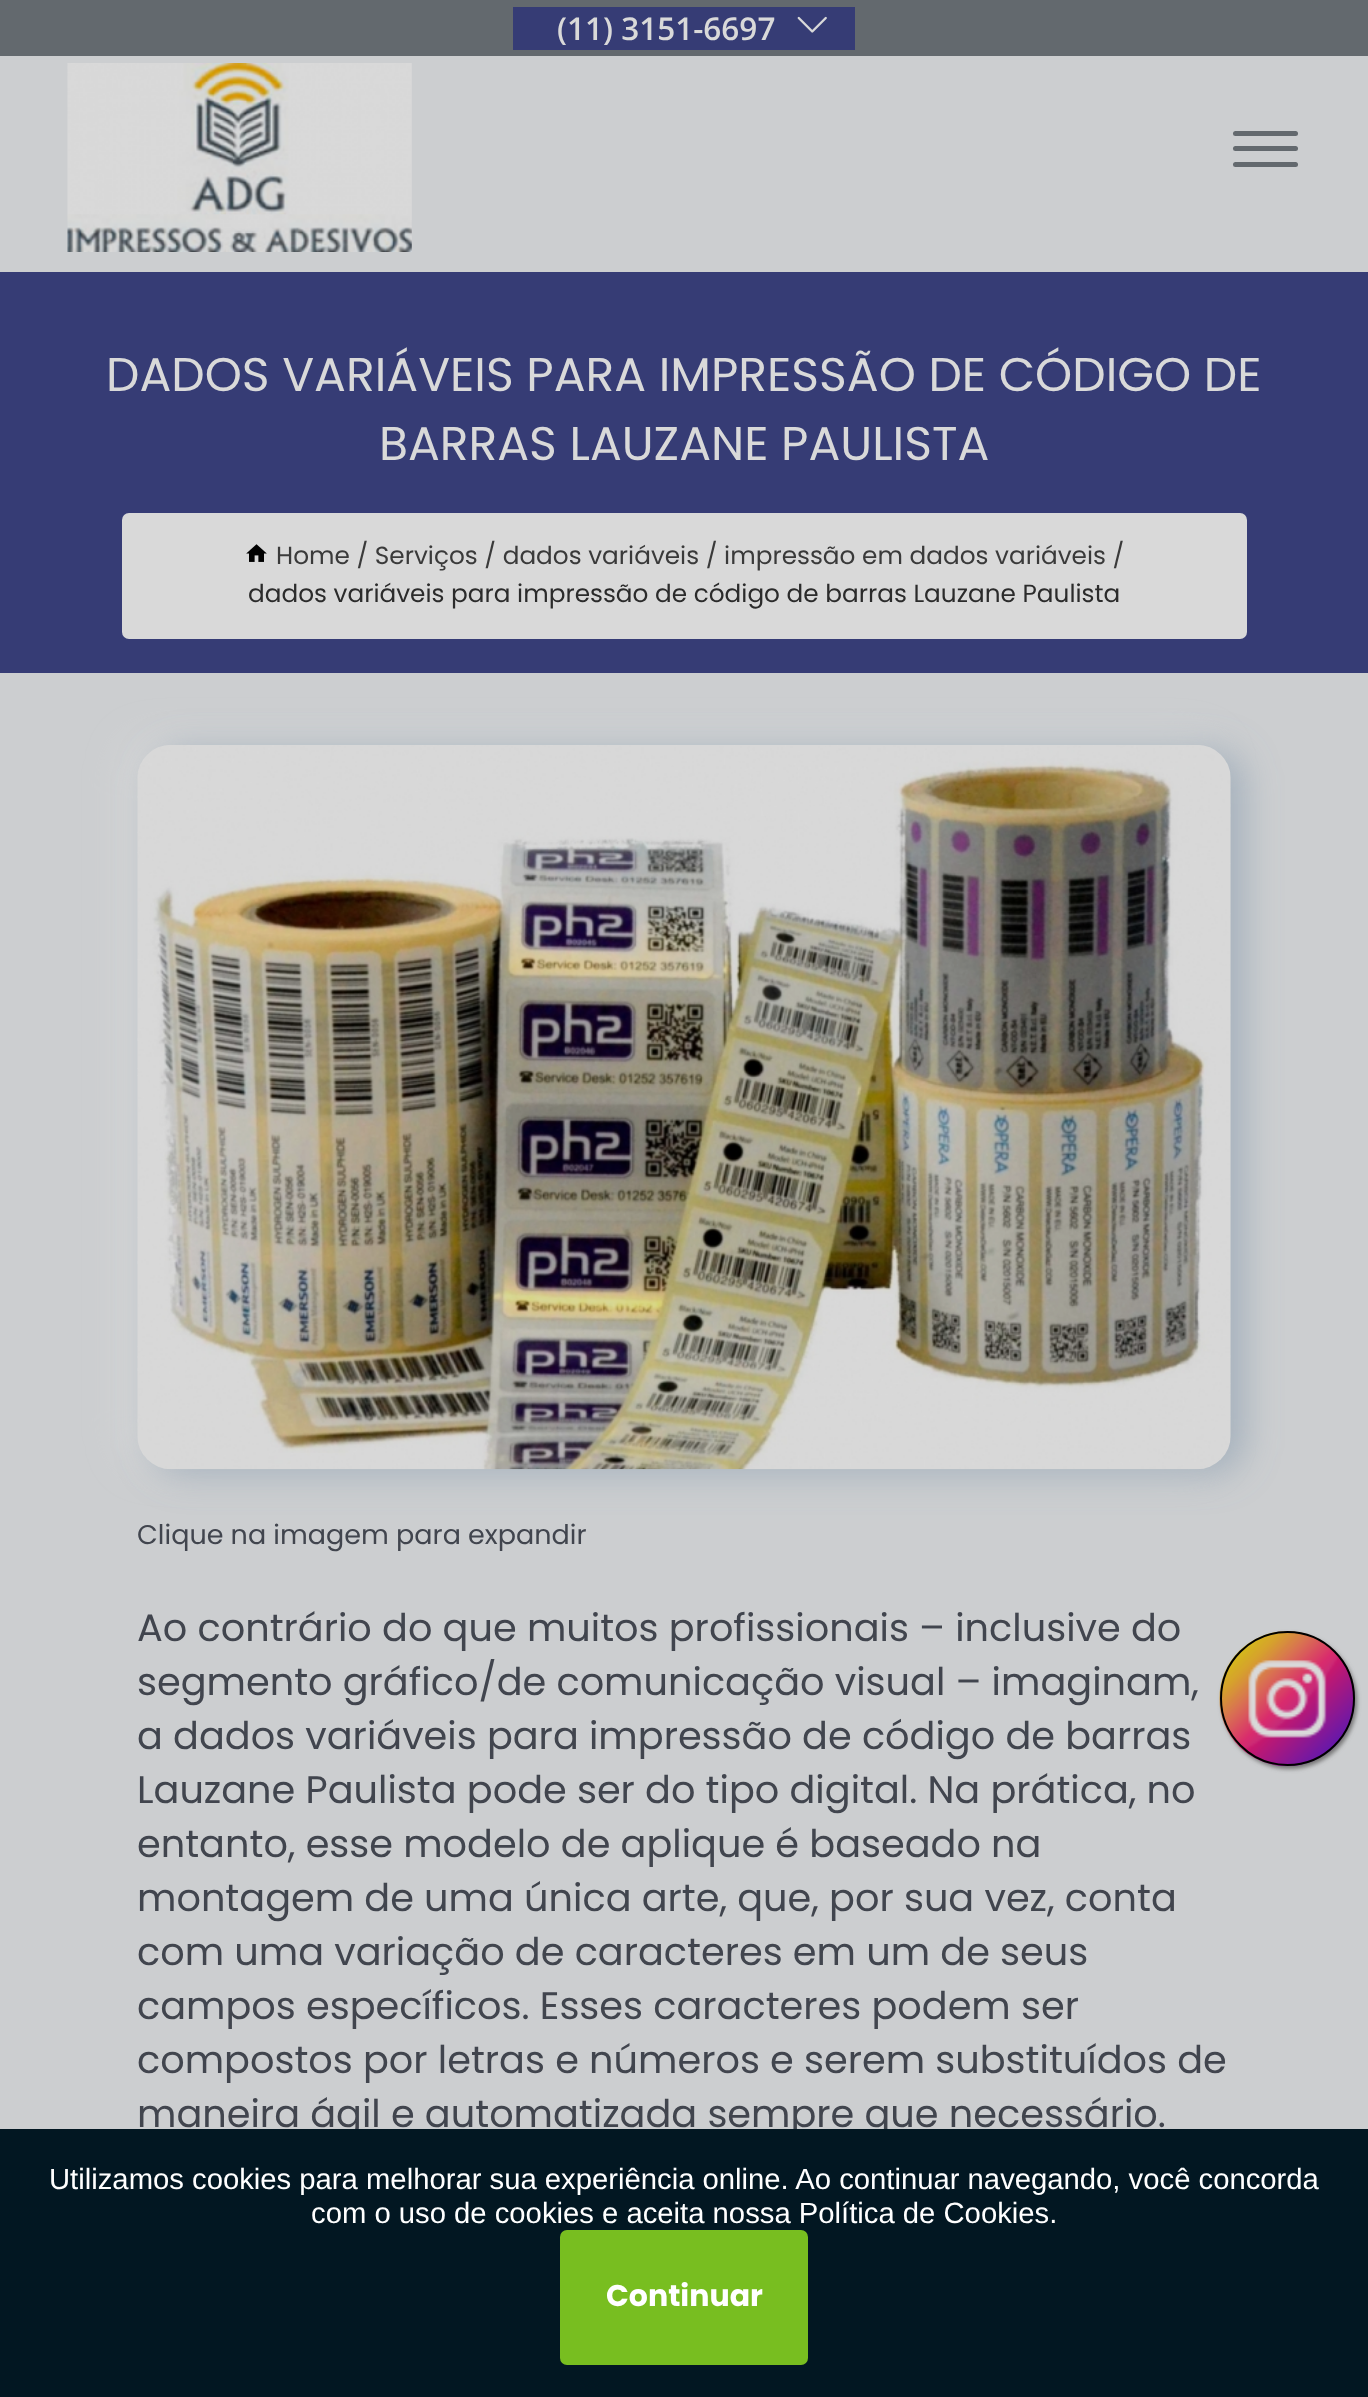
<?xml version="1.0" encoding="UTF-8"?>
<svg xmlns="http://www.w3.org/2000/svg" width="1368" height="2397">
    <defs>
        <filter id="blur1" x="-50%" y="-200%" width="200%" height="500%"><feGaussianBlur stdDeviation="18"/></filter>
        <filter id="blur2" x="-50%" y="-200%" width="200%" height="500%"><feGaussianBlur stdDeviation="2"/></filter>
    </defs>
    <rect width="100%" height="100%" fill="#CCCED0"/>
    <rect x="0" y="0" width="1368" height="56" fill="#63696E"/>
    <rect x="513" y="7" width="342" height="43" fill="#363C75"/>
    <text x="557" y="40" font-family="Open Sans" font-size="31.5" font-weight="600" fill="#D9D9D9">(11) 3151-6697</text>
    <image x="797" y="16" width="30" height="17" href="img_01.png"/>
    <image x="67" y="63" width="345" height="189" href="img_02.png"/>
    <rect x="1233" y="131" width="65" height="5" rx="2.5" fill="#63696E"/>
    <rect x="1233" y="146" width="65" height="5" rx="2.5" fill="#63696E"/>
    <rect x="1233" y="162" width="65" height="5" rx="2.5" fill="#63696E"/>
    <rect x="0" y="272" width="1368" height="401" fill="#363C75"/>
    <text x="106" y="391" font-family="Poppins" font-size="47.25" fill="#D9D9D9">DADOS VARIÁVEIS PARA IMPRESSÃO DE CÓDIGO DE</text>
    <text x="379" y="460" font-family="Poppins" font-size="47.25" fill="#D9D9D9">BARRAS LAUZANE PAULISTA</text>
    <rect x="122" y="513" width="1125" height="126" rx="7" fill="#D9D9D9"/>
    <image x="246" y="544" width="21" height="18" href="img_03.png"/>
    <text x="276" y="564" font-family="Poppins" font-size="24.75" fill="#3A3A3A">Home / Serviços / dados variáveis / impressão em dados variáveis /</text>
    <text x="248" y="602" font-family="Poppins" font-size="24.75" fill="#2B2B2B">dados variáveis para impressão de código de barras Lauzane Paulista</text>
    <rect x="124" y="740" width="1093" height="725" rx="34" fill="#D9D9D9" fill-opacity="0.8" filter="url(#blur1)"/>
    <rect x="151" y="749" width="1093" height="725" rx="34" fill="#748CA2" fill-opacity="0.48" filter="url(#blur1)"/>
    <image x="137" y="745" width="1094" height="725" href="img_04.png"/>
    <text x="137" y="1544" font-family="Poppins" font-size="27" fill="#41454E">Clique na imagem para expandir</text>
    <text font-family="Poppins" font-size="38.25" fill="#41454E">
        <tspan x="137" y="1641">Ao contrário do que muitos profissionais – inclusive do</tspan>
        <tspan x="137" y="1695">segmento gráfico/de comunicação visual – imaginam,</tspan>
        <tspan x="137" y="1749">a dados variáveis para impressão de código de barras</tspan>
        <tspan x="137" y="1803">Lauzane Paulista pode ser do tipo digital. Na prática, no</tspan>
        <tspan x="137" y="1857">entanto, esse modelo de aplique é baseado na</tspan>
        <tspan x="137" y="1911">montagem de uma única arte, que, por sua vez, conta</tspan>
        <tspan x="137" y="1965">com uma variação de caracteres em um de seus</tspan>
        <tspan x="137" y="2019">campos específicos. Esses caracteres podem ser</tspan>
        <tspan x="137" y="2073">compostos por letras e números e serem substituídos de</tspan>
        <tspan x="137" y="2127">maneira ágil e automatizada sempre que necessário.</tspan>
    </text>
    <rect x="1222" y="1634" width="135" height="135" rx="67.5" fill="#747474" filter="url(#blur2)"/>
    <image x="1219" y="1631" width="136" height="136" href="img_05.png"/>
    <circle cx="1287.5" cy="1698.5" r="66.5" fill="none" stroke="#000000" stroke-width="2"/>
    <rect x="0" y="2129" width="1368" height="268" fill="#021722"/>
    <text x="49" y="2189" font-family="Liberation Sans" font-size="29.25" fill="#FFFFFF">Utilizamos cookies para melhorar sua experiência online. Ao continuar navegando, você concorda</text>
    <text x="311" y="2223" font-family="Liberation Sans" font-size="29.25" fill="#FFFFFF">com o uso de cookies e aceita nossa Política de Cookies.</text>
    <rect x="560" y="2230" width="248" height="135" rx="7" fill="#78BE20"/>
    <text x="606" y="2306" font-family="Poppins" font-size="30" font-weight="700" fill="#FFFFFF">Continuar</text>
</svg>
